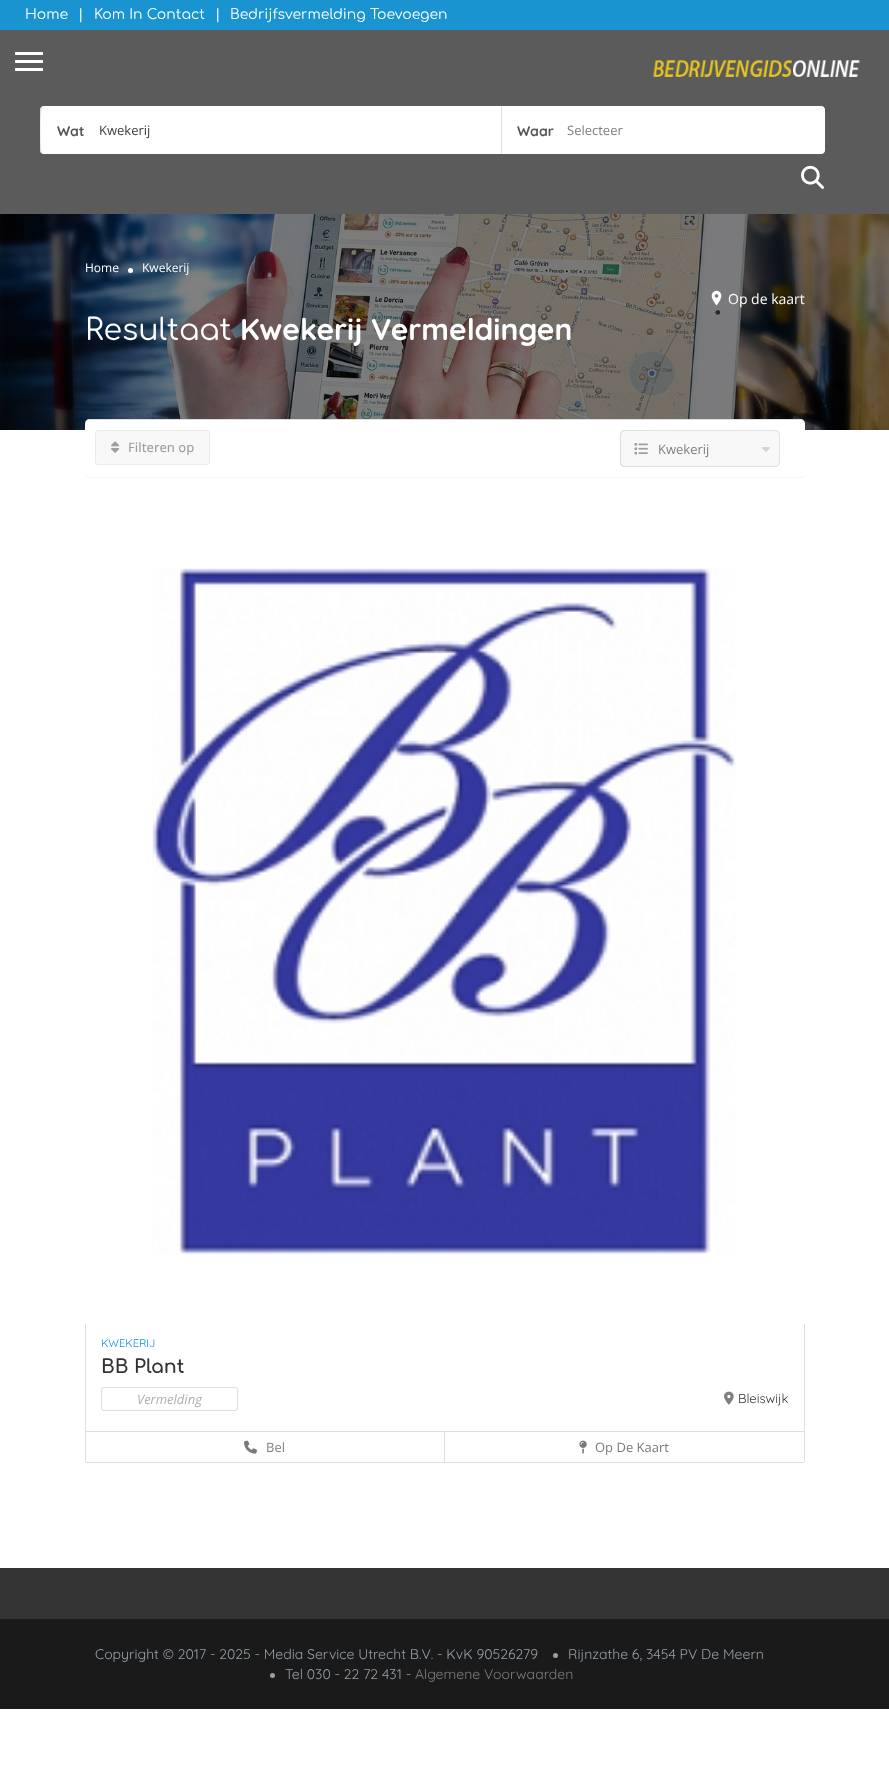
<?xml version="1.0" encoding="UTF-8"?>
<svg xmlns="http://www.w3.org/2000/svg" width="889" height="1771">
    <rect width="100%" height="100%" fill="#FFFFFF"/>
    <rect x="0" y="0" width="889" height="30" fill="#1A94D1"/>
    <text x="25" y="19" font-family="Comfortaa" font-size="14" fill="#FFFFFF">Home</text>
    <text x="78" y="19" font-family="Comfortaa" font-size="14" fill="#FFFFFF">|</text>
    <text x="94" y="19" font-family="Comfortaa" font-size="14" fill="#FFFFFF">Kom In Contact</text>
    <text x="215" y="19" font-family="Comfortaa" font-size="14" fill="#FFFFFF">|</text>
    <text x="230" y="19" font-family="Comfortaa" font-size="14" fill="#FFFFFF">Bedrijfsvermelding Toevoegen</text>
    <rect x="0" y="30" width="889" height="184" fill="#5B5B5B"/>
    <rect x="15" y="52" width="28" height="3" fill="#FFFFFF"/>
    <rect x="15" y="60" width="28" height="3" fill="#FFFFFF"/>
    <rect x="15" y="68" width="28" height="3" fill="#FFFFFF"/>
    <image x="653" y="60" width="207" height="17" href="img_01.png"/>
    <path d="M 44 106 H 501 V 154 H 44 C 42 154 40 152 40 150 V 110 C 40 108 42 106 44 106 Z" fill="#FFFFFF"/>
    <path d="M 44 106 L 41 107 L 42 108 L 44 107 H 500 L 501 106 Z" fill="#FFFFFF"/>
    <path d="M 501 154 L 500 153 H 44 L 42 152 L 41 153 L 44 154 Z" fill="#FFFFFF"/>
    <path d="M 40 110 V 150 C 40 151 40 152 41 153 L 42 152 C 40 151 40 109 42 108 L 41 107 Z" fill="#DEDEDE"/>
    <text x="57" y="136" font-family="Quicksand" font-size="14" font-weight="700" fill="#555555">Wat</text>
    <text x="99" y="135" font-family="Open Sans" font-size="13" fill="#3E3E3E">Kwekerij</text>
    <path d="M 501 106 H 821 C 823 106 825 108 825 110 V 150 C 825 152 823 154 821 154 H 501 Z" fill="#FFFFFF"/>
    <path d="M 501 106 L 502 107 H 821 L 823 108 L 824 107 L 821 106 Z" fill="#FFFFFF"/>
    <path d="M 825 150 V 110 C 825 109 824 108 824 107 L 823 108 C 825 109 825 151 823 152 L 824 153 Z" fill="#FFFFFF"/>
    <path d="M 821 154 L 824 153 L 823 152 L 821 153 H 502 L 501 154 Z" fill="#FFFFFF"/>
    <path d="M 501 106 V 154 L 502 153 V 107 Z" fill="#DEDEDE"/>
    <text x="517" y="136" font-family="Quicksand" font-size="14" font-weight="700" fill="#555555">Waar</text>
    <text x="567" y="135" font-family="Open Sans" font-size="13" fill="#7F7F7F">Selecteer</text>
    <image x="801" y="165" width="23" height="24" href="img_02.png"/>
    <image x="0" y="214" width="889" height="216" href="img_03.png"/>
    <text x="85" y="272" font-family="Open Sans" font-size="12" fill="#FFFFFF">Home</text>
    <circle cx="130.5" cy="270.5" r="2.5" fill="#FFFFFF"/>
    <text x="142" y="272" font-family="Open Sans" font-size="12" fill="#FFFFFF">Kwekerij</text>
    <image x="711" y="290" width="11" height="16" href="img_04.png"/>
    <text x="728" y="304" font-family="Open Sans" font-size="14" fill="#FFFFFF">Op de kaart</text>
    <text x="85" y="340" font-family="Comfortaa" font-size="30" fill="#FFFFFF">Resultaat</text>
    <text x="240" y="340" font-family="Quicksand" font-size="30" font-weight="700" fill="#FFFFFF">Kwekerij</text>
    <text x="371" y="340" font-family="Quicksand" font-size="30" font-weight="700" fill="#FFFFFF">Vermeldingen</text>
    <rect x="85" y="419" width="720" height="59" rx="5" fill="#FFFFFF"/>
    <path d="M 90 419 C 87 419 85 421 85 424 C 85 422 87 420 90 420 H 800 C 803 420 805 422 805 424 C 805 421 803 419 800 419 Z" fill="#DEDEDE"/>
    <path d="M 800 478 C 803 478 805 476 805 473 C 805 475 803 477 800 477 H 90 C 87 477 85 475 85 473 C 85 476 87 478 90 478 Z" fill="#F6F6F6"/>
    <rect x="95.5" y="430.5" width="114" height="34" rx="2.5" fill="#F8F8F8" stroke="#EAEAEA"/>
    <image x="111" y="441" width="9" height="12" href="img_05.png"/>
    <text x="128" y="452" font-family="Open Sans" font-size="13" font-weight="500" fill="#9F9F9F">Filteren op</text>
    <path d="M 625 430 H 650 V 467 H 625 C 622 467 620 465 620 462 V 435 C 620 432 622 430 625 430 Z" fill="#F8F8F8"/>
    <path d="M 625 430 H 650 V 467 H 625 C 622 467 620 465 620 462 V 435 C 620 432 622 430 625 430 Z M 625 431 H 650 V 466 H 625 C 623 466 621 464 621 462 V 435 C 621 433 623 431 625 431 Z" fill="#DEDEDE" fill-rule="evenodd"/>
    <image x="634" y="443" width="14" height="12" href="img_06.png"/>
    <path d="M 650 430 H 775 C 778 430 780 432 780 435 V 462 C 780 465 778 467 775 467 H 650 Z" fill="#F8F8F8"/>
    <path d="M 650 430 H 775 C 778 430 780 432 780 435 V 462 C 780 465 778 467 775 467 H 650 Z M 650 431 H 775 C 777 431 779 433 779 435 V 462 C 779 464 777 466 775 466 H 650 Z" fill="#E3E3E3" fill-rule="evenodd"/>
    <text x="658" y="454" font-family="Open Sans" font-size="13" fill="#7F7F7F">Kwekerij</text>
    <image x="762" y="447" width="8" height="5" href="img_07.png"/>
    <image x="152" y="568" width="584" height="687" href="img_08.png"/>
    <rect x="804" y="1324" width="1" height="138" fill="#DEDEDE"/>
    <rect x="85" y="1431" width="720" height="1" fill="#DEDEDE"/>
    <rect x="85" y="1324" width="1" height="138" fill="#DEDEDE"/>
    <text x="101" y="1347" font-family="Quicksand" font-size="11" fill="#1193DD">KWEKERIJ</text>
    <text x="101" y="1373" font-family="Comfortaa" font-size="19" font-weight="700" fill="#333333">BB Plant</text>
    <rect x="101.5" y="1387.5" width="136" height="23" rx="2.5" fill="none" stroke="#DEDEDE"/>
    <text x="137" y="1404" font-family="Open Sans" font-size="13" font-style="italic" fill="#AFAFAF">Vermelding</text>
    <image x="724" y="1391" width="10" height="14" href="img_09.png"/>
    <text x="738" y="1403" font-family="Quicksand" font-size="13" fill="#333333">Bleiswijk</text>
    <rect x="86" y="1462" width="718" height="1" fill="#DEDEDE"/>
    <rect x="444" y="1432" width="1" height="30" fill="#DEDEDE"/>
    <image x="244" y="1440" width="13" height="14" href="img_10.png"/>
    <text x="266" y="1452" font-family="Open Sans" font-size="13" fill="#7F7F7F">Bel</text>
    <image x="579" y="1440" width="8" height="14" href="img_11.png"/>
    <text x="595" y="1452" font-family="Open Sans" font-size="13" fill="#797979">Op De Kaart</text>
    <rect x="0" y="1568" width="889" height="51" fill="#333333"/>
    <rect x="0" y="1619" width="889" height="90" fill="#1A1A1A"/>
    <text x="95" y="1659" font-family="Quicksand" font-size="14" fill="#96A0A9">Copyright © 2017 - 2025 - Media Service Utrecht B.V. - KvK 90526279</text>
    <circle cx="555.5" cy="1655.5" r="2.5" fill="#96A0A9"/>
    <text x="568" y="1659" font-family="Quicksand" font-size="14" fill="#96A0A9">Rijnzathe 6, 3454 PV De Meern</text>
    <circle cx="272.5" cy="1675.5" r="2.5" fill="#96A0A9"/>
    <text x="285" y="1679" font-family="Quicksand" font-size="14" fill="#96A0A9">Tel 030 - 22 72 431 -</text>
    <text x="415" y="1679" font-family="Quicksand" font-size="14" fill="#7F7F7F">Algemene Voorwaarden</text>
</svg>
